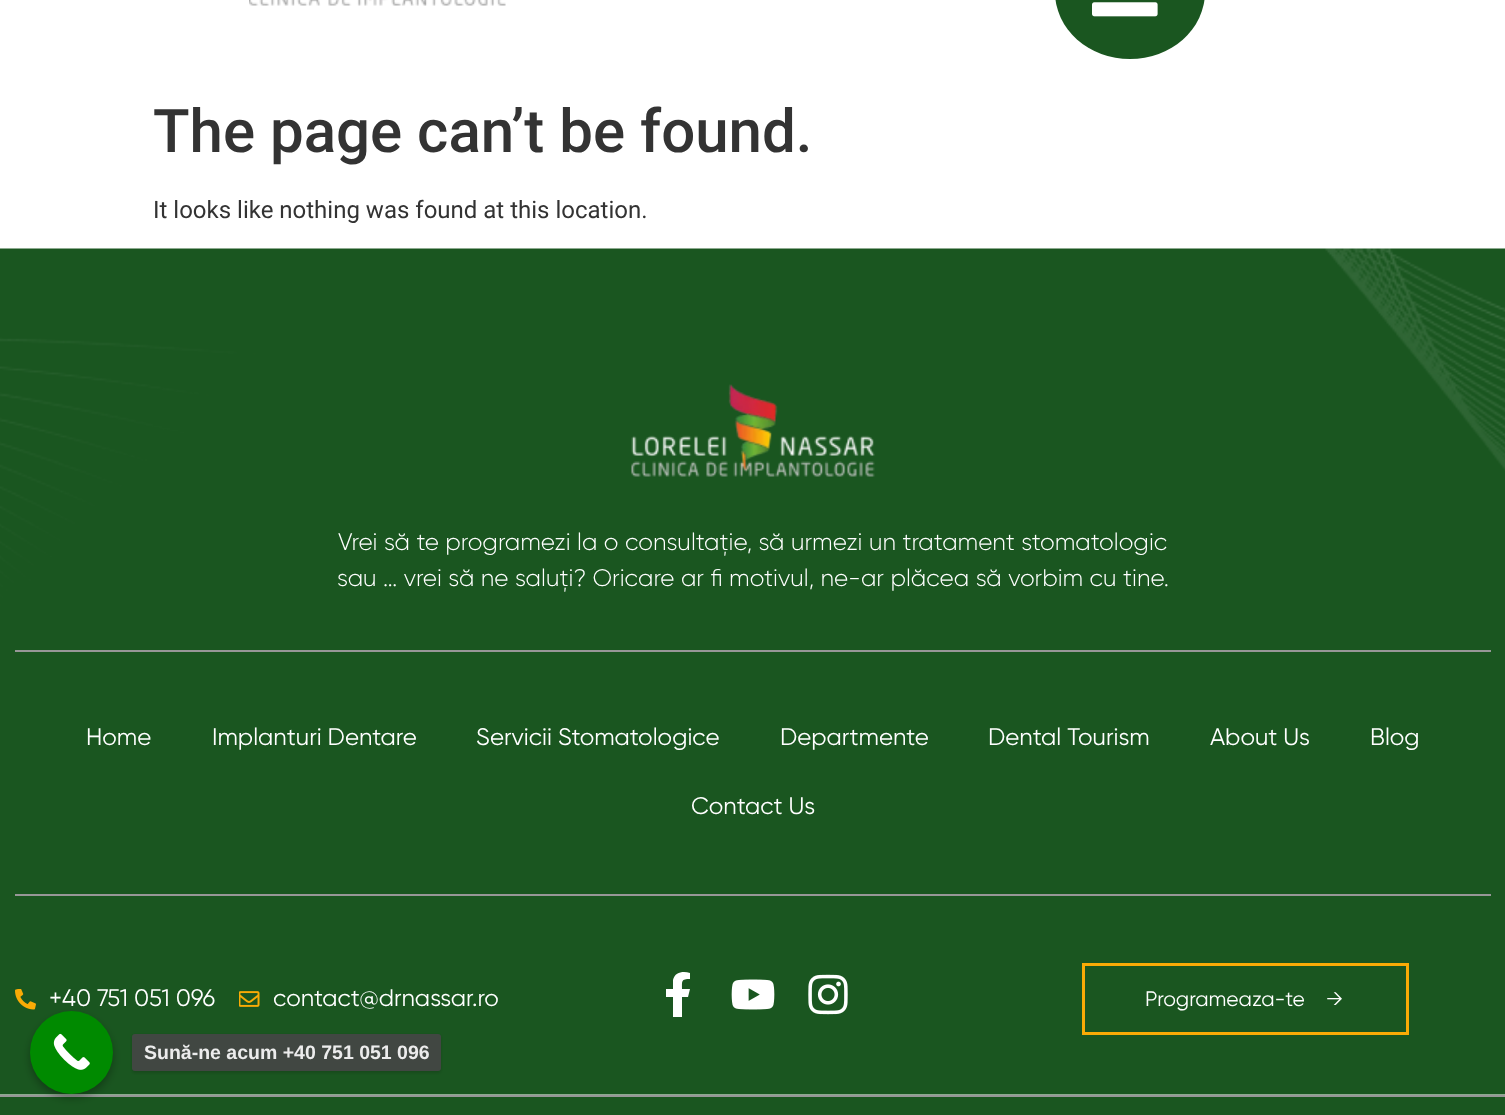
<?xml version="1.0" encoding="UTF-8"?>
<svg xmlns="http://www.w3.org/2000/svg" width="1505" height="1115">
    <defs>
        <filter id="blur1" x="-50%" y="-200%" width="200%" height="500%"><feGaussianBlur stdDeviation="4.5"/></filter>
        <clipPath id="clip1"><path d="M 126 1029 H 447 V 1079 H 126 Z M 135 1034 H 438 C 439.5 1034 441 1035.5 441 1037 V 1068 C 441 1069.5 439.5 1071 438 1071 H 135 C 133.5 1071 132 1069.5 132 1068 V 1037 C 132 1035.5 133.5 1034 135 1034 Z" clip-rule="evenodd"/></clipPath>
        <filter id="blur2" x="-50%" y="-200%" width="200%" height="500%"><feGaussianBlur stdDeviation="1.5"/></filter>
    </defs>
    <rect width="100%" height="100%" fill="#FFFFFF"/>
    <image x="249" y="0" width="257" height="6" href="img_01.png"/>
    <rect x="1055" y="-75" width="150" height="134" rx="75" fill="#1A5620"/>
    <image x="1092" y="2" width="66" height="15" href="img_02.png"/>
    <text x="153" y="152" font-family="Roboto" font-size="60" font-weight="500" fill="#333333">The page can’t be found.</text>
    <text x="153" y="218" font-family="Roboto" font-size="24" fill="#333333">It looks like nothing was found at this location.</text>
    <image x="0" y="248" width="1505" height="847" href="img_03.png"/>
    <image x="631" y="384" width="244" height="93" href="img_04.png"/>
    <text x="338" y="550" font-family="Gilroy" font-size="24" font-weight="300" fill="#FFFFFF">Vrei să te programezi la o consultație, să urmezi un tratament stomatologic</text>
    <text x="337" y="586" font-family="Gilroy" font-size="24" font-weight="300" fill="#FFFFFF">sau … vrei să ne saluți? Oricare ar fi motivul, ne-ar plăcea să vorbim cu tine.</text>
    <rect x="15" y="650" width="1476" height="2" fill="#979797"/>
    <text x="86" y="745" font-family="Gilroy" font-size="24" fill="#FFFFFF">Home</text>
    <text x="212" y="745" font-family="Gilroy" font-size="24" fill="#FFFFFF">Implanturi Dentare</text>
    <text x="476" y="745" font-family="Gilroy" font-size="24" fill="#FFFFFF">Servicii Stomatologice</text>
    <text x="780" y="745" font-family="Gilroy" font-size="24" fill="#FFFFFF">Departmente</text>
    <text x="988" y="745" font-family="Gilroy" font-size="24" fill="#FFFFFF">Dental Tourism</text>
    <text x="1210" y="745" font-family="Gilroy" font-size="24" fill="#FFFFFF">About Us</text>
    <text x="1370" y="745" font-family="Gilroy" font-size="24" fill="#FFFFFF">Blog</text>
    <text x="691" y="814" font-family="Gilroy" font-size="24" fill="#FFFFFF">Contact Us</text>
    <rect x="15" y="894" width="1476" height="2" fill="#979797"/>
    <image x="15" y="989" width="21" height="21" href="img_05.png"/>
    <text x="49" y="1006" font-family="Gilroy" font-size="24" fill="#FFFFFF">+40 751 051 096</text>
    <image x="239" y="991" width="21" height="16" href="img_06.png"/>
    <text x="273" y="1006" font-family="Gilroy" font-size="24" fill="#FFFFFF">contact@drnassar.ro</text>
    <path d="M 688 997 L 690 989 H 682 C 682 981 681 979 690 979 V 973 C 683 971 675 972 673 980 V 989 H 666 V 997 H 673 V 1017 H 682 V 997 Z" fill="#FFFFFF"/>
    <image x="731" y="979" width="44" height="31" href="img_07.png"/>
    <image x="808" y="974" width="40" height="41" href="img_08.png"/>
    <rect x="1083.5" y="964.5" width="324" height="69" fill="none" stroke="#F9AB06" stroke-width="3"/>
    <text x="1145" y="1006" font-family="Gilroy" font-size="21" fill="#FFFFFF">Programeaza-te</text>
    <text x="1326" y="1006" font-family="Gilroy" font-size="21" fill="#FFFFFF">→</text>
    <rect x="0" y="1097" width="1505" height="18" fill="#1A5620"/>
    <rect x="0" y="1095" width="1505" height="2" fill="#979797"/>
    <rect x="30" y="1016" width="83" height="82" rx="41" fill="#000000" fill-opacity="0.3" filter="url(#blur1)"/>
    <circle cx="71.5" cy="1052.5" r="41.5" fill="#008A00"/>
    <image x="53" y="1033" width="37" height="37" href="img_09.png"/>
    <g clip-path="url(#clip1)">
        <rect x="132" y="1035" width="309" height="38" rx="3" fill="#000000" fill-opacity="0.15" filter="url(#blur2)"/>
    </g>
    <rect x="132" y="1034" width="309" height="37" rx="3" fill="#464646" fill-opacity="0.9"/>
    <text x="144" y="1059" font-family="Liberation Sans" font-size="19.5" font-weight="700" fill="#ECECEC">Sună-ne acum +40 751 051 096</text>
</svg>
